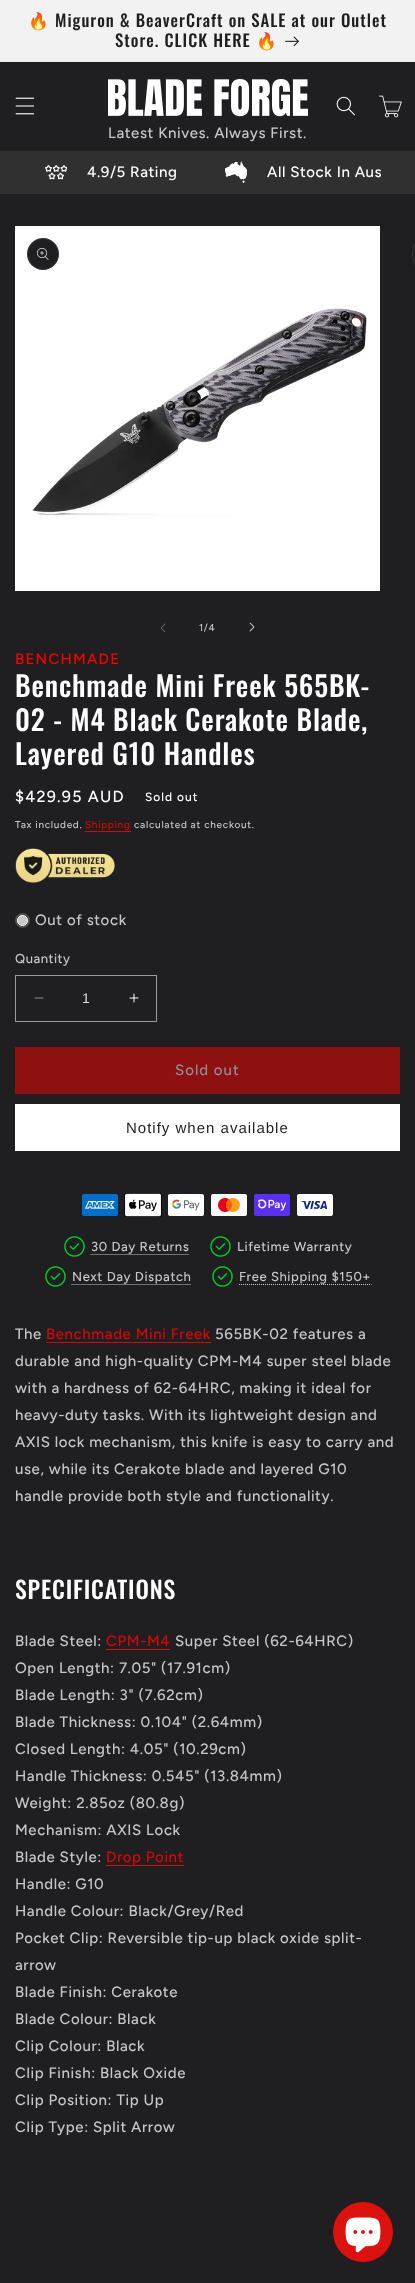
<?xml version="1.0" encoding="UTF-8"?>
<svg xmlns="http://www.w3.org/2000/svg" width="415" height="2283">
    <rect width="100%" height="100%" fill="#1F1F21"/>
    <rect x="0" y="61" width="415" height="1" fill="#EDEDED"/>
    <rect x="0" y="0" width="415" height="61" fill="#F2F2F2"/>
    <text x="28" y="27" font-family="Noto Color Emoji" font-size="16.75" letter-spacing="1" fill="#1F1F21">🔥</text>
    <text x="55" y="27" font-family="Oswald" font-size="16.75" font-weight="500" letter-spacing="1" fill="#1F1F21">Miguron &amp; BeaverCraft on SALE at our Outlet</text>
    <text x="115" y="47" font-family="Oswald" font-size="16.75" font-weight="500" letter-spacing="1" fill="#1F1F21">Store. CLICK HERE</text>
    <text x="256" y="47" font-family="Noto Color Emoji" font-size="16.75" letter-spacing="1" fill="#1F1F21">🔥</text>
    <image x="285" y="36" width="14" height="11" href="img_01.png"/>
    <image x="15" y="97" width="20" height="18" href="img_02.png"/>
    <image x="336" y="96" width="19" height="20" href="img_03.png"/>
    <image x="379" y="95" width="23" height="23" href="img_04.png"/>
    <image x="108" y="79" width="200" height="38" href="img_05.png"/>
    <text x="108" y="138" font-family="Figtree" font-size="15" font-weight="500" letter-spacing="0.6" fill="#C7C7C8">Latest Knives. Always First.</text>
    <rect x="0" y="151" width="415" height="43" fill="#303030"/>
    <image x="45" y="165" width="22" height="15" href="img_06.png"/>
    <text x="87" y="177" font-family="Figtree" font-size="15" font-weight="500" letter-spacing="0.6" fill="#FFFFFF">4.9/5 Rating</text>
    <image x="225" y="161" width="22" height="22" href="img_07.png"/>
    <text x="267" y="177" font-family="Figtree" font-size="15" font-weight="500" letter-spacing="0.6" fill="#FFFFFF">All Stock In Aus</text>
    <image x="15" y="226" width="365" height="365" href="img_08.png"/>
    <circle cx="43" cy="254" r="16" fill="#1F1F21"/>
    <circle cx="43" cy="254" r="15.5" fill="none" stroke="#FFFFFF" stroke-opacity="0.1"/>
    <image x="37" y="248" width="12" height="12" href="img_09.png"/>
    <rect x="412.5" y="238.5" width="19" height="31" rx="15.5" fill="none" stroke="#353537"/>
    <image x="160" y="623" width="6" height="10" href="img_10.png"/>
    <text x="199" y="631" font-family="Figtree" font-size="10" font-weight="500" letter-spacing="0.7" fill="#C7C7C8">1/4</text>
    <image x="249" y="622" width="6" height="10" href="img_11.png"/>
    <text x="15" y="664" font-family="Figtree" font-size="15" font-weight="500" letter-spacing="1.25" fill="#FF0000">BENCHMADE</text>
    <text font-family="Oswald" font-size="28" font-weight="500" letter-spacing="0.85" fill="#FFFFFF">
        <tspan x="15" y="697">Benchmade Mini Freek 565BK-</tspan>
        <tspan x="15" y="731">02 - M4 Black Cerakote Blade,</tspan>
        <tspan x="15" y="765">Layered G10 Handles</tspan>
    </text>
    <text x="15" y="802" font-family="Figtree" font-size="16" font-weight="500" letter-spacing="1.25" fill="#FFFFFF">$429.95 AUD</text>
    <text x="145" y="801" font-family="Figtree" font-size="12" font-weight="500" letter-spacing="1" fill="#FFFFFF">Sold out</text>
    <text x="15" y="828" font-family="Figtree" font-size="10" font-weight="500" letter-spacing="0.7" fill="#C7C7C8">Tax included.</text>
    <text x="85" y="828" font-family="Figtree" font-size="10" font-weight="500" letter-spacing="0.7" fill="#DD0505">Shipping</text>
    <rect x="85" y="831" width="46" height="1" fill="#DD0505"/>
    <text x="134" y="828" font-family="Figtree" font-size="10" font-weight="500" letter-spacing="0.7" fill="#C7C7C8">calculated at checkout.</text>
    <image x="15" y="848" width="100" height="35" href="img_12.png"/>
    <circle cx="22.5" cy="920.5" r="7.5" fill="#525253"/>
    <circle cx="22.5" cy="920.5" r="5" fill="#C8C8C8" stroke="#FFFFFF"/>
    <text x="35" y="925" font-family="Figtree" font-size="15" font-weight="500" letter-spacing="0.6" fill="#C7C7C8">Out of stock</text>
    <text x="15" y="963" font-family="Figtree" font-size="13" font-weight="500" letter-spacing="0.5" fill="#C7C7C8">Quantity</text>
    <image x="34" y="997" width="10" height="2" href="img_13.png"/>
    <image x="129" y="993" width="10" height="10" href="img_14.png"/>
    <rect x="15.5" y="975.5" width="141" height="46" fill="none" stroke="#9A9A9B"/>
    <text x="82" y="1003" font-family="Liberation Sans" font-size="14" fill="#DDDDDE">1</text>
    <rect x="15" y="1047" width="385" height="47" fill="#8F1011"/>
    <text x="175" y="1075" font-family="Figtree" font-size="15" font-weight="500" letter-spacing="1" fill="#8F8F90">Sold out</text>
    <rect x="15" y="1104" width="385" height="47" fill="#FFFFFF"/>
    <text x="126" y="1133" font-family="Liberation Sans" font-size="15" letter-spacing="1" fill="#1F1F21">Notify when available</text>
    <image x="82" y="1194" width="36" height="22" href="img_15.png"/>
    <image x="124" y="1193" width="38" height="24" href="img_16.png"/>
    <image x="168" y="1194" width="36" height="22" href="img_17.png"/>
    <image x="211" y="1194" width="36" height="22" href="img_18.png"/>
    <image x="254" y="1194" width="36" height="22" href="img_19.png"/>
    <image x="297" y="1194" width="36" height="22" href="img_20.png"/>
    <image x="64" y="1236" width="21" height="21" href="img_21.png"/>
    <text x="91" y="1251" font-family="Figtree" font-size="13" font-weight="500" letter-spacing="0.6" fill="#C7C7C8">30 Day Returns</text>
    <path d="M 90.5 1254.5 H 189" fill="none" stroke="#C7C7C7" stroke-dasharray="1 1"/>
    <image x="210" y="1236" width="21" height="21" href="img_21.png"/>
    <text x="237" y="1251" font-family="Figtree" font-size="13" font-weight="500" letter-spacing="0.6" fill="#C7C7C8">Lifetime Warranty</text>
    <image x="45" y="1266" width="21" height="21" href="img_21.png"/>
    <text x="72" y="1281" font-family="Figtree" font-size="13" font-weight="500" letter-spacing="0.6" fill="#C7C7C8">Next Day Dispatch</text>
    <path d="M 71.5 1284.5 H 191" fill="none" stroke="#C7C7C7" stroke-dasharray="1 1"/>
    <image x="212" y="1266" width="21" height="21" href="img_21.png"/>
    <text x="239" y="1281" font-family="Figtree" font-size="13" font-weight="500" letter-spacing="0.6" fill="#C7C7C8">Free Shipping $150+</text>
    <path d="M 239 1284.5 H 371.5" fill="none" stroke="#C7C7C7" stroke-dasharray="1 1"/>
    <text x="15" y="1339" font-family="Figtree" font-size="15" font-weight="500" letter-spacing="0.6" fill="#C7C7C8">The</text>
    <text x="46" y="1339" font-family="Figtree" font-size="15" font-weight="500" letter-spacing="0.6" fill="#DD0505">Benchmade Mini Freek</text>
    <rect x="46" y="1342" width="165" height="1" fill="#DD0505"/>
    <text x="215" y="1339" font-family="Figtree" font-size="15" font-weight="500" letter-spacing="0.6" fill="#C7C7C8">565BK-02 features a</text>
    <text font-family="Figtree" font-size="15" font-weight="500" letter-spacing="0.6" fill="#C7C7C8">
        <tspan x="15" y="1366">durable and high-quality CPM-M4 super steel blade</tspan>
        <tspan x="15" y="1393">with a hardness of 62-64HRC, making it ideal for</tspan>
        <tspan x="15" y="1420">heavy-duty tasks. With its lightweight design and</tspan>
        <tspan x="15" y="1447">AXIS lock mechanism, this knife is easy to carry and</tspan>
        <tspan x="15" y="1474">use, while its Cerakote blade and layered G10</tspan>
        <tspan x="15" y="1501">handle provide both style and functionality.</tspan>
    </text>
    <text x="15" y="1599" font-family="Oswald" font-size="23.75" font-weight="500" letter-spacing="0.85" fill="#FFFFFF">SPECIFICATIONS</text>
    <text x="15" y="1646" font-family="Figtree" font-size="15" font-weight="500" letter-spacing="0.6" fill="#C7C7C8">Blade Steel:</text>
    <text x="106" y="1646" font-family="Figtree" font-size="15" font-weight="500" letter-spacing="0.6" fill="#DD0505">CPM-M4</text>
    <rect x="106" y="1649" width="64" height="1" fill="#DD0505"/>
    <text x="175" y="1646" font-family="Figtree" font-size="15" font-weight="500" letter-spacing="0.6" fill="#C7C7C8">Super Steel (62-64HRC)</text>
    <text font-family="Figtree" font-size="15" font-weight="500" letter-spacing="0.6" fill="#C7C7C8">
        <tspan x="15" y="1673">Open Length: 7.05" (17.91cm)</tspan>
        <tspan x="15" y="1700">Blade Length: 3" (7.62cm)</tspan>
        <tspan x="15" y="1727">Blade Thickness: 0.104" (2.64mm)</tspan>
        <tspan x="15" y="1754">Closed Length: 4.05" (10.29cm)</tspan>
        <tspan x="15" y="1781">Handle Thickness: 0.545" (13.84mm)</tspan>
        <tspan x="15" y="1808">Weight: 2.85oz (80.8g)</tspan>
        <tspan x="15" y="1835">Mechanism: AXIS Lock</tspan>
        <tspan x="15" y="1862">Blade Style:</tspan>
    </text>
    <text x="106" y="1862" font-family="Figtree" font-size="15" font-weight="500" letter-spacing="0.6" fill="#DD0505">Drop Point</text>
    <rect x="106" y="1865" width="78" height="1" fill="#DD0505"/>
    <text font-family="Figtree" font-size="15" font-weight="500" letter-spacing="0.6" fill="#C7C7C8">
        <tspan x="15" y="1889">Handle: G10</tspan>
        <tspan x="15" y="1916">Handle Colour: Black/Grey/Red</tspan>
        <tspan x="15" y="1943">Pocket Clip: Reversible tip-up black oxide split-</tspan>
        <tspan x="15" y="1970">arrow</tspan>
        <tspan x="15" y="1997">Blade Finish: Cerakote</tspan>
        <tspan x="15" y="2024">Blade Colour: Black</tspan>
        <tspan x="15" y="2051">Clip Colour: Black</tspan>
        <tspan x="15" y="2078">Clip Finish: Black Oxide</tspan>
        <tspan x="15" y="2105">Clip Position: Tip Up</tspan>
        <tspan x="15" y="2132">Clip Type: Split Arrow</tspan>
    </text>
    <circle cx="363" cy="2232" r="30" fill="#DD110E"/>
    <image x="345" y="2217" width="36" height="36" href="img_22.png"/>
</svg>
